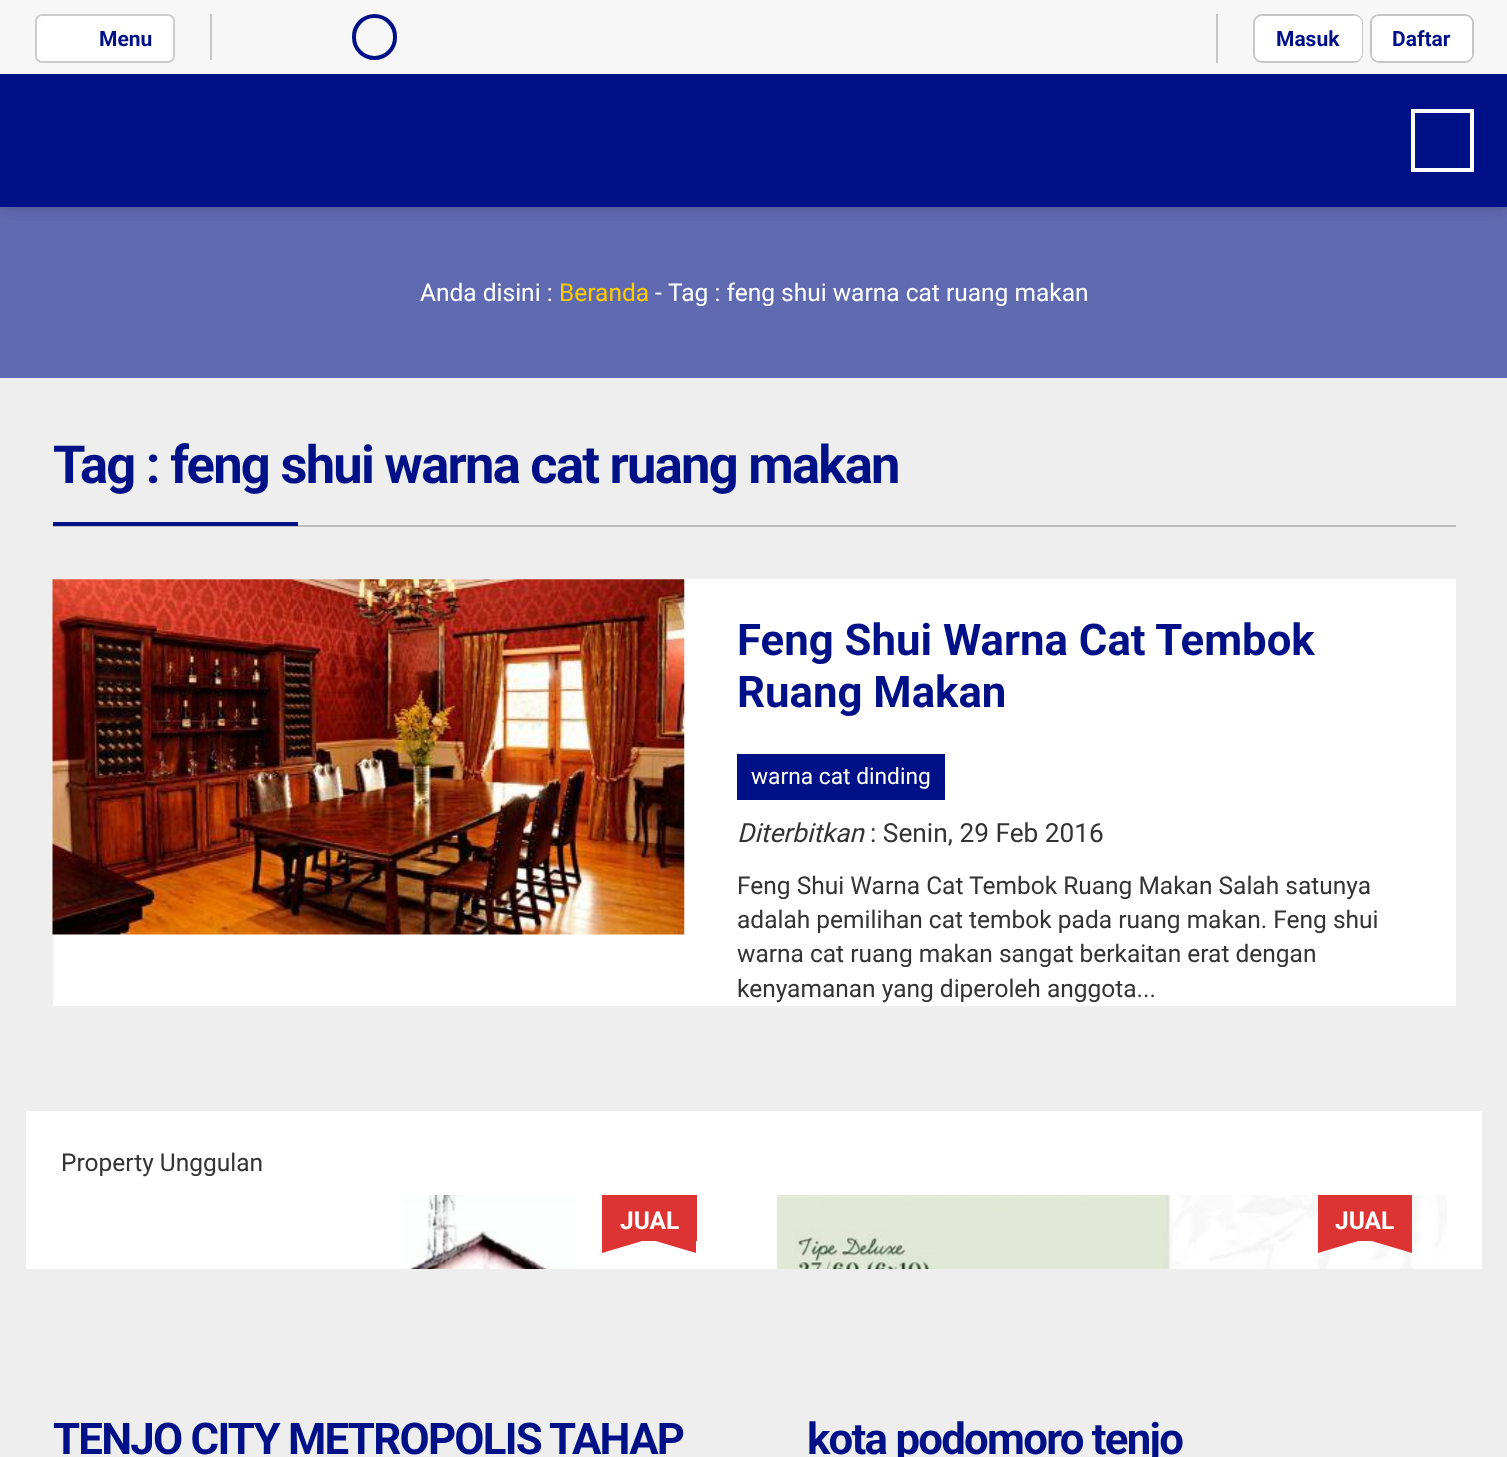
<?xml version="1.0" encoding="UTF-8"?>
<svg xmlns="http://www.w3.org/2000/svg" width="1507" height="1457">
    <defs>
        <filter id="blur1" x="-50%" y="-200%" width="200%" height="500%"><feGaussianBlur stdDeviation="9"/></filter>
    </defs>
    <rect width="100%" height="100%" fill="#EEEEEE"/>
    <rect x="0" y="207" width="1507" height="171" fill="#606AB1"/>
    <rect x="0" y="0" width="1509" height="207" fill="#000000" fill-opacity="0.1" filter="url(#blur1)"/>
    <rect x="0" y="74" width="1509" height="133" fill="#000000" fill-opacity="0.1" filter="url(#blur1)"/>
    <rect x="0" y="0" width="1507" height="74" fill="#F7F7F7"/>
    <rect x="35" y="14" width="140" height="49" rx="7" fill="#FFFFFF"/>
    <rect x="36" y="15" width="138" height="47" rx="6" fill="none" stroke="#000000" stroke-opacity="0.2" stroke-width="2"/>
    <text x="99" y="46" font-family="Roboto" font-size="21" font-weight="700" fill="#001188">Menu</text>
    <rect x="210" y="14" width="2" height="46" fill="#C6C6C6"/>
    <rect x="354" y="16" width="41" height="42" rx="20.5" fill="none" stroke="#001188" stroke-width="4"/>
    <rect x="1216" y="14" width="2" height="49" fill="#C6C6C6"/>
    <rect x="1254" y="15" width="108" height="47" rx="8" fill="none" stroke="#C6C6C6" stroke-width="2"/>
    <rect x="1255" y="16" width="107" height="45" rx="7" fill="#FFFFFF"/>
    <text x="1276" y="46" font-family="Roboto" font-size="21" font-weight="700" fill="#001188">Masuk</text>
    <rect x="1371" y="15" width="102" height="47" rx="8" fill="none" stroke="#C6C6C6" stroke-width="2"/>
    <rect x="1372" y="16" width="100" height="45" rx="7" fill="#FFFFFF"/>
    <text x="1392" y="46" font-family="Roboto" font-size="21" font-weight="700" fill="#001188">Daftar</text>
    <rect x="0" y="74" width="1507" height="133" fill="#001188"/>
    <rect x="1413" y="111" width="59" height="59" fill="none" stroke="#FFFFFF" stroke-width="4"/>
    <text x="420" y="301" font-family="Roboto" font-size="24.5" fill="#FFFFFF">Anda disini :</text>
    <text x="559" y="301" font-family="Roboto" font-size="24.5" fill="#FFCC00">Beranda</text>
    <text x="655" y="301" font-family="Roboto" font-size="24.5" fill="#FFFFFF">-</text>
    <text x="668" y="301" font-family="Roboto" font-size="24.5" fill="#FFFFFF">Tag : feng shui warna cat ruang makan</text>
    <rect x="53" y="525" width="1403" height="2" fill="#BEBEBE"/>
    <text x="53" y="483" font-family="Roboto" font-size="52.5" font-weight="700" letter-spacing="-1.75" fill="#001188">Tag : feng shui warna cat ruang makan</text>
    <rect x="53" y="522" width="245" height="4" fill="#001188"/>
    <rect x="53" y="579" width="1403" height="427" fill="#FFFFFF"/>
    <image x="52" y="579" width="633" height="356" href="img_01.png"/>
    <text font-family="Roboto" font-size="43.75" font-weight="700" fill="#001188">
        <tspan x="737" y="655">Feng Shui Warna Cat Tembok</tspan>
        <tspan x="737" y="707">Ruang Makan</tspan>
    </text>
    <rect x="737" y="754" width="208" height="46" fill="#001188"/>
    <text x="751" y="784" font-family="Roboto" font-size="22.75" fill="#FFFFFF">warna cat dinding</text>
    <text x="737" y="842" font-family="Roboto" font-size="26.25" font-style="italic" fill="#333333">Diterbitkan</text>
    <text x="870" y="842" font-family="Roboto" font-size="26.25" fill="#333333">: Senin, 29 Feb 2016</text>
    <text font-family="Roboto" font-size="24.5" fill="#333333">
        <tspan x="737" y="894">Feng Shui Warna Cat Tembok Ruang Makan Salah satunya</tspan>
        <tspan x="737" y="928">adalah pemilihan cat tembok pada ruang makan. Feng shui</tspan>
        <tspan x="737" y="962">warna cat ruang makan sangat berkaitan erat dengan</tspan>
        <tspan x="737" y="997">kenyamanan yang diperoleh anggota...</tspan>
    </text>
    <rect x="26" y="1111" width="1456" height="158" fill="#FFFFFF"/>
    <text x="61" y="1171" font-family="Roboto" font-size="24.5" fill="#333333">Property Unggulan</text>
    <image x="403" y="1195" width="175" height="74" href="img_02.png"/>
    <rect x="602" y="1195" width="95" height="46" fill="#DD3333"/>
    <text x="620" y="1229" font-family="Roboto" font-size="24.5" font-weight="700" fill="#FFFFFF">JUAL</text>
    <path d="M 602 1253 V 1239 H 649 Z" fill="#DD3333"/>
    <path d="M 696 1239 V 1253 L 649 1239 Z" fill="#DD3333"/>
    <image x="776" y="1195" width="671" height="74" href="img_03.png"/>
    <rect x="1318" y="1195" width="94" height="46" fill="#DD3333"/>
    <text x="1335" y="1229" font-family="Roboto" font-size="24.5" font-weight="700" fill="#FFFFFF">JUAL</text>
    <path d="M 1318 1253 V 1239 H 1365 Z" fill="#DD3333"/>
    <path d="M 1412 1239 V 1253 L 1365 1239 Z" fill="#DD3333"/>
    <text x="53" y="1454" font-family="Roboto" font-size="43.75" font-weight="700" letter-spacing="-1.75" fill="#001188">TENJO CITY METROPOLIS TAHAP</text>
    <text x="807" y="1454" font-family="Roboto" font-size="43.75" font-weight="700" letter-spacing="-1.75" fill="#001188">kota podomoro tenjo</text>
</svg>
